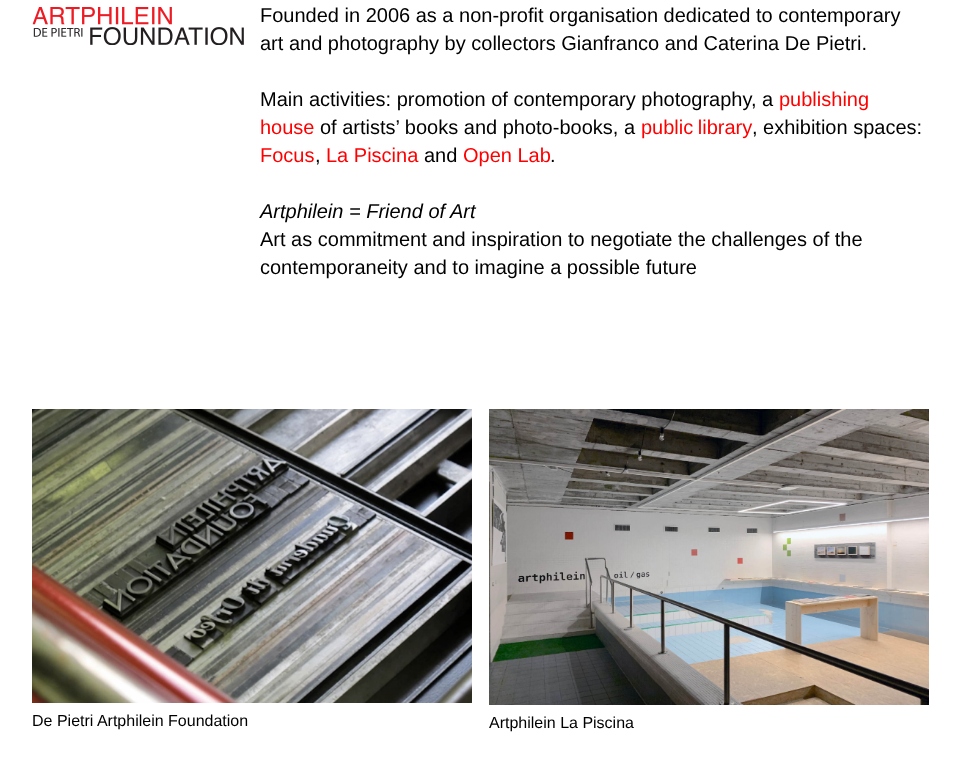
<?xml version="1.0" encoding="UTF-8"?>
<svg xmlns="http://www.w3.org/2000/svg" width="961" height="762">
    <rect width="100%" height="100%" fill="#FFFFFF"/>
    <image x="32" y="7" width="212" height="38" href="img_01.png"/>
    <text font-family="Liberation Sans" font-size="20" fill="#000000">
        <tspan x="260" y="22">Founded in 2006 as a non-profit organisation dedicated to contemporary</tspan>
        <tspan x="260" y="50">art and photography by collectors Gianfranco and Caterina De Pietri.</tspan>
    </text>
    <text x="260" y="106" font-family="Liberation Sans" font-size="20" fill="#000000">Main activities: promotion of contemporary photography, a</text>
    <text x="779" y="106" font-family="Liberation Sans" font-size="20" fill="#FF0000">publishing</text>
    <text x="260" y="134" font-family="Liberation Sans" font-size="20" fill="#FF0000">house</text>
    <text x="320" y="134" font-family="Liberation Sans" font-size="20" fill="#000000">of artists’ books and photo-books, a</text>
    <text x="641" y="134" word-spacing="-1" font-family="Liberation Sans" font-size="20" fill="#FF0000">public library</text>
    <text x="752" y="134" font-family="Liberation Sans" font-size="20" fill="#000000">, exhibition spaces:</text>
    <text x="260" y="162" font-family="Liberation Sans" font-size="20" fill="#FF0000">Focus</text>
    <text x="315" y="162" font-family="Liberation Sans" font-size="20" fill="#000000">,</text>
    <text x="326" y="162" font-family="Liberation Sans" font-size="20" fill="#FF0000">La Piscina</text>
    <text x="424" y="162" font-family="Liberation Sans" font-size="20" fill="#000000">and</text>
    <text x="463" y="162" font-family="Liberation Sans" font-size="20" fill="#FF0000">Open Lab</text>
    <text x="550" y="162" font-family="Liberation Sans" font-size="20" fill="#000000">.</text>
    <text x="260" y="218" font-family="Liberation Sans" font-size="20" font-style="italic" fill="#000000">Artphilein = Friend of Art</text>
    <text font-family="Liberation Sans" font-size="20" fill="#000000">
        <tspan x="260" y="246">Art as commitment and inspiration to negotiate the challenges of the</tspan>
        <tspan x="260" y="274">contemporaneity and to imagine a possible future</tspan>
    </text>
    <image x="32" y="409" width="440" height="294" href="img_02.png"/>
    <text x="32" y="726" font-family="Liberation Sans" font-size="16" fill="#000000">De Pietri Artphilein Foundation</text>
    <image x="489" y="409" width="440" height="296" href="img_03.png"/>
    <text x="489" y="728" font-family="Liberation Sans" font-size="16" fill="#000000">Artphilein La Piscina</text>
</svg>
